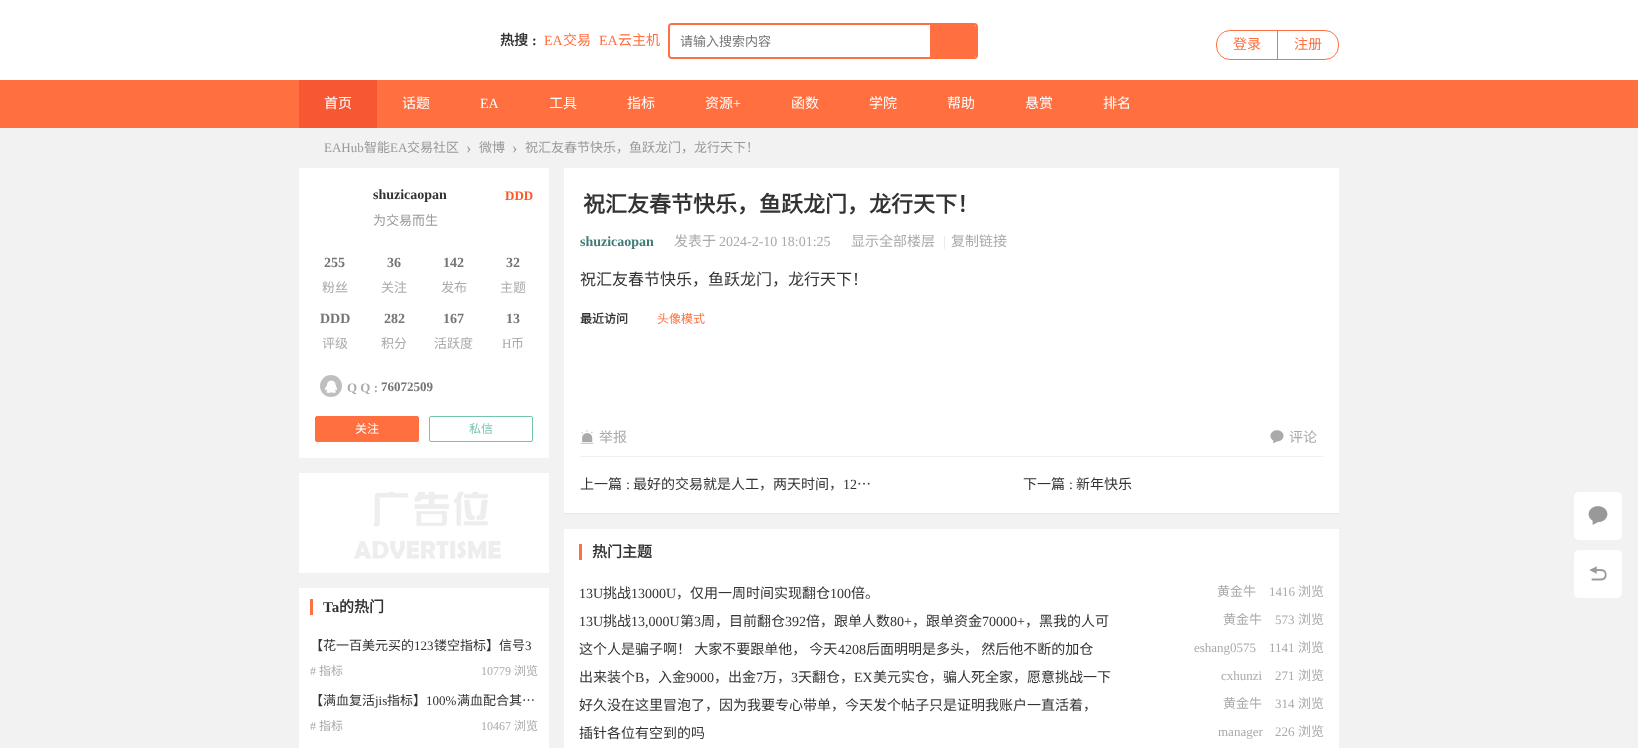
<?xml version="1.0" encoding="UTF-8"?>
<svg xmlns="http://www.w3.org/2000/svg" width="1638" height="748">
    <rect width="100%" height="100%" fill="#F2F2F2"/>
    <rect x="0" y="0" width="1638" height="80" fill="#FFFFFF"/>
    <text x="500" y="45" font-family="Noto Sans CJK SC" font-size="14" font-weight="700" fill="#333333">热搜</text>
    <text x="532" y="45" font-family="Liberation Serif" font-size="14" font-weight="700" fill="#333333">:</text>
    <text x="544" y="45" font-family="Liberation Serif" font-size="14" fill="#FF6F40">EA</text>
    <text x="563" y="45" font-family="Noto Sans CJK SC" font-size="14" fill="#FF6F40">交易</text>
    <text x="599" y="45" font-family="Liberation Serif" font-size="14" fill="#FF6F40">EA</text>
    <text x="618" y="45" font-family="Noto Sans CJK SC" font-size="14" fill="#FF6F40">云主机</text>
    <rect x="669" y="24" width="308" height="34" rx="3" fill="none" stroke="#FF6F40" stroke-width="2"/>
    <path d="M 672 25 H 930 V 57 H 672 C 671 57 670 56 670 55 V 27 C 670 26 671 25 672 25 Z" fill="#FFFFFF"/>
    <text x="680" y="46" font-family="Noto Sans CJK SC" font-size="13" fill="#757575">请输入搜索内容</text>
    <path d="M 930 25 H 974 C 975 25 976 26 976 27 V 55 C 976 56 975 57 974 57 H 930 Z" fill="#FF6F40"/>
    <rect x="1216.5" y="30.5" width="122" height="29" rx="13.5" fill="none" stroke="#FF6F40"/>
    <rect x="1277" y="31" width="1" height="28" fill="#FF6F40"/>
    <text x="1233" y="49" font-family="Noto Sans CJK SC" font-size="14" fill="#FF6F40">登录</text>
    <text x="1294" y="49" font-family="Noto Sans CJK SC" font-size="14" fill="#FF6F40">注册</text>
    <rect x="0" y="80" width="1638" height="48" fill="#FF6F40"/>
    <rect x="299" y="80" width="78" height="48" fill="#F75733"/>
    <text x="324" y="108" font-family="Noto Sans CJK SC" font-size="14" fill="#FFFFFF">首页</text>
    <text x="402" y="108" font-family="Noto Sans CJK SC" font-size="14" fill="#FFFFFF">话题</text>
    <text x="480" y="108" font-family="Liberation Serif" font-size="14" fill="#FFFFFF">EA</text>
    <text x="549" y="108" font-family="Noto Sans CJK SC" font-size="14" fill="#FFFFFF">工具</text>
    <text x="627" y="108" font-family="Noto Sans CJK SC" font-size="14" fill="#FFFFFF">指标</text>
    <text x="705" y="108" font-family="Noto Sans CJK SC" font-size="14" fill="#FFFFFF">资源</text>
    <text x="733" y="108" font-family="Liberation Serif" font-size="14" fill="#FFFFFF">+</text>
    <text x="791" y="108" font-family="Noto Sans CJK SC" font-size="14" fill="#FFFFFF">函数</text>
    <text x="869" y="108" font-family="Noto Sans CJK SC" font-size="14" fill="#FFFFFF">学院</text>
    <text x="947" y="108" font-family="Noto Sans CJK SC" font-size="14" fill="#FFFFFF">帮助</text>
    <text x="1025" y="108" font-family="Noto Sans CJK SC" font-size="14" fill="#FFFFFF">悬赏</text>
    <text x="1103" y="108" font-family="Noto Sans CJK SC" font-size="14" fill="#FFFFFF">排名</text>
    <text x="324" y="152" font-family="Liberation Serif" font-size="13" fill="#999999">EAHub</text>
    <text x="364" y="152" font-family="Noto Sans CJK SC" font-size="13" fill="#999999">智能</text>
    <text x="390" y="152" font-family="Liberation Serif" font-size="13" fill="#999999">EA</text>
    <text x="407" y="152" font-family="Noto Sans CJK SC" font-size="13" fill="#999999">交易社区</text>
    <text x="466" y="153" font-family="Liberation Serif" font-size="16" fill="#999999">›</text>
    <text x="479" y="152" font-family="Noto Sans CJK SC" font-size="13" fill="#999999">微博</text>
    <text x="512" y="153" font-family="Liberation Serif" font-size="16" fill="#999999">›</text>
    <text x="525" y="152" font-family="Noto Sans CJK SC" font-size="13" fill="#999999">祝汇友春节快乐，鱼跃龙门，龙行天下！</text>
    <rect x="299" y="168" width="250" height="290" fill="#FFFFFF"/>
    <text x="373" y="199" font-family="Liberation Serif" font-size="14" font-weight="700" fill="#333333">shuzicaopan</text>
    <text x="505" y="200" font-family="Liberation Serif" font-size="13" font-weight="700" fill="#FF5722">DDD</text>
    <text x="373" y="225" font-family="Noto Sans CJK SC" font-size="13" fill="#999999">为交易而生</text>
    <text x="324" y="267" font-family="Liberation Serif" font-size="14" font-weight="700" fill="#757575">255</text>
    <text x="322" y="292" font-family="Noto Sans CJK SC" font-size="13" fill="#AAAAAA">粉丝</text>
    <text x="387" y="267" font-family="Liberation Serif" font-size="14" font-weight="700" fill="#757575">36</text>
    <text x="381" y="292" font-family="Noto Sans CJK SC" font-size="13" fill="#AAAAAA">关注</text>
    <text x="443" y="267" font-family="Liberation Serif" font-size="14" font-weight="700" fill="#757575">142</text>
    <text x="441" y="292" font-family="Noto Sans CJK SC" font-size="13" fill="#AAAAAA">发布</text>
    <text x="506" y="267" font-family="Liberation Serif" font-size="14" font-weight="700" fill="#757575">32</text>
    <text x="500" y="292" font-family="Noto Sans CJK SC" font-size="13" fill="#AAAAAA">主题</text>
    <text x="320" y="323" font-family="Liberation Serif" font-size="14" font-weight="700" fill="#757575">DDD</text>
    <text x="322" y="348" font-family="Noto Sans CJK SC" font-size="13" fill="#AAAAAA">评级</text>
    <text x="384" y="323" font-family="Liberation Serif" font-size="14" font-weight="700" fill="#757575">282</text>
    <text x="381" y="348" font-family="Noto Sans CJK SC" font-size="13" fill="#AAAAAA">积分</text>
    <text x="443" y="323" font-family="Liberation Serif" font-size="14" font-weight="700" fill="#757575">167</text>
    <text x="434" y="348" font-family="Noto Sans CJK SC" font-size="13" fill="#AAAAAA">活跃度</text>
    <text x="506" y="323" font-family="Liberation Serif" font-size="14" font-weight="700" fill="#757575">13</text>
    <text x="502" y="348" font-family="Liberation Serif" font-size="13" fill="#AAAAAA">H</text>
    <text x="511" y="348" font-family="Noto Sans CJK SC" font-size="13" fill="#AAAAAA">币</text>
    <circle cx="331" cy="386" r="11" fill="#BFBFBF"/>
    <image x="325" y="380" width="12" height="13" href="img_01.png"/>
    <text x="347" y="392" font-family="Liberation Serif" font-size="13" font-weight="700" fill="#AAAAAA">Q Q :</text>
    <text x="381" y="391" font-family="Liberation Serif" font-size="13" font-weight="700" fill="#757575">76072509</text>
    <rect x="315.5" y="416.5" width="103" height="25" rx="1.5" fill="#FF6F40" stroke="#FF6F40"/>
    <text x="355" y="433" font-family="Noto Sans CJK SC" font-size="12" fill="#FFFFFF">关注</text>
    <rect x="429.5" y="416.5" width="103" height="25" rx="1.5" fill="none" stroke="#76C4B0"/>
    <text x="469" y="433" font-family="Noto Sans CJK SC" font-size="12" fill="#76C4B0">私信</text>
    <image x="299" y="473" width="250" height="100" href="img_02.png"/>
    <rect x="299" y="588" width="250" height="160" fill="#FFFFFF"/>
    <rect x="310" y="599" width="3" height="16" fill="#FF6F40"/>
    <text x="323" y="612" font-family="Liberation Serif" font-size="15" font-weight="700" fill="#333333">Ta</text>
    <text x="339" y="612" font-family="Noto Sans CJK SC" font-size="15" font-weight="700" fill="#333333">的热门</text>
    <text x="310" y="650" font-family="Noto Sans CJK SC" font-size="13" fill="#333333">【花一百美元买的</text>
    <text x="414" y="650" font-family="Liberation Serif" font-size="13" fill="#333333">123</text>
    <text x="434" y="650" font-family="Noto Sans CJK SC" font-size="13" fill="#333333">镂空指标】信号</text>
    <text x="525" y="650" font-family="Liberation Serif" font-size="13" fill="#333333">3</text>
    <text x="310" y="675" font-family="Liberation Serif" font-size="12" fill="#AAAAAA">#</text>
    <text x="319" y="675" font-family="Noto Sans CJK SC" font-size="12" fill="#AAAAAA">指标</text>
    <text x="481" y="675" font-family="Liberation Serif" font-size="12" fill="#AAAAAA">10779</text>
    <text x="514" y="675" font-family="Noto Sans CJK SC" font-size="12" fill="#AAAAAA">浏览</text>
    <text x="310" y="705" font-family="Noto Sans CJK SC" font-size="13" fill="#333333">【满血复活</text>
    <text x="375" y="705" font-family="Liberation Serif" font-size="13" fill="#333333">jis</text>
    <text x="387" y="705" font-family="Noto Sans CJK SC" font-size="13" fill="#333333">指标】</text>
    <text x="426" y="705" font-family="Liberation Serif" font-size="13" fill="#333333">100%</text>
    <text x="457" y="705" font-family="Noto Sans CJK SC" font-size="13" fill="#333333">满血配合其…</text>
    <text x="310" y="730" font-family="Liberation Serif" font-size="12" fill="#AAAAAA">#</text>
    <text x="319" y="730" font-family="Noto Sans CJK SC" font-size="12" fill="#AAAAAA">指标</text>
    <text x="481" y="730" font-family="Liberation Serif" font-size="12" fill="#AAAAAA">10467</text>
    <text x="514" y="730" font-family="Noto Sans CJK SC" font-size="12" fill="#AAAAAA">浏览</text>
    <rect x="564" y="168" width="775" height="53" fill="#FFFFFF"/>
    <text x="583" y="212" font-family="Noto Sans CJK SC" font-size="22" font-weight="700" fill="#333333">祝汇友春节快乐，鱼跃龙门，龙行天下！</text>
    <rect x="565" y="221" width="773" height="292" fill="#FFFFFF"/>
    <rect x="1338" y="221" width="1" height="293" fill="#FFFFFF"/>
    <rect x="564" y="221" width="1" height="293" fill="#FFFFFF"/>
    <text x="580" y="246" font-family="Liberation Serif" font-size="14" font-weight="700" fill="#407B77">shuzicaopan</text>
    <text x="674" y="246" font-family="Noto Sans CJK SC" font-size="14" fill="#AAAAAA">发表于</text>
    <text x="719" y="246" font-family="Liberation Serif" font-size="14" fill="#AAAAAA">2024-2-10 18:01:25</text>
    <text x="851" y="246" font-family="Noto Sans CJK SC" font-size="14" fill="#AAAAAA">显示全部楼层</text>
    <text x="943" y="246" font-family="Liberation Serif" font-size="14" fill="#E6E6E6">|</text>
    <text x="951" y="246" font-family="Noto Sans CJK SC" font-size="14" fill="#AAAAAA">复制链接</text>
    <text x="580" y="285" font-family="Noto Sans CJK SC" font-size="16" fill="#333333">祝汇友春节快乐，鱼跃龙门，龙行天下！</text>
    <text x="580" y="323" font-family="Noto Sans CJK SC" font-size="12" font-weight="700" fill="#333333">最近访问</text>
    <text x="657" y="323" font-family="Noto Sans CJK SC" font-size="12" fill="#FF6F40">头像模式</text>
    <image x="580" y="430" width="14" height="14" href="img_03.png"/>
    <text x="599" y="442" font-family="Noto Sans CJK SC" font-size="14" fill="#AAAAAA">举报</text>
    <image x="1270" y="430" width="14" height="14" href="img_04.png"/>
    <text x="1289" y="442" font-family="Noto Sans CJK SC" font-size="14" fill="#AAAAAA">评论</text>
    <rect x="580" y="456" width="743" height="1" fill="#F0F0F0"/>
    <text x="580" y="489" font-family="Noto Sans CJK SC" font-size="14" fill="#333333">上一篇</text>
    <text x="626" y="489" font-family="Liberation Serif" font-size="14" fill="#333333">:</text>
    <text x="633" y="489" font-family="Noto Sans CJK SC" font-size="14" fill="#333333">最好的交易就是人工，两天时间，</text>
    <text x="843" y="489" font-family="Liberation Serif" font-size="14" fill="#333333">12</text>
    <text x="857" y="489" font-family="Noto Sans CJK SC" font-size="14" fill="#333333">…</text>
    <text x="1023" y="489" font-family="Noto Sans CJK SC" font-size="14" fill="#333333">下一篇</text>
    <text x="1069" y="489" font-family="Liberation Serif" font-size="14" fill="#333333">:</text>
    <text x="1076" y="489" font-family="Noto Sans CJK SC" font-size="14" fill="#333333">新年快乐</text>
    <rect x="564" y="513" width="775" height="1" fill="#E5E6E8"/>
    <rect x="564" y="529" width="775" height="219" fill="#FFFFFF"/>
    <rect x="579" y="544" width="3" height="16" fill="#FF6F40"/>
    <text x="592" y="557" font-family="Noto Sans CJK SC" font-size="15" font-weight="700" fill="#333333">热门主题</text>
    <text x="579" y="598" font-family="Liberation Serif" font-size="14" fill="#333333">13U</text>
    <text x="603" y="598" font-family="Noto Sans CJK SC" font-size="14" fill="#333333">挑战</text>
    <text x="631" y="598" font-family="Liberation Serif" font-size="14" fill="#333333">13000U</text>
    <text x="676" y="598" font-family="Noto Sans CJK SC" font-size="14" fill="#333333">，仅用一周时间实现翻仓</text>
    <text x="830" y="598" font-family="Liberation Serif" font-size="14" fill="#333333">100</text>
    <text x="851" y="598" font-family="Noto Sans CJK SC" font-size="14" fill="#333333">倍。</text>
    <text x="1217" y="596" font-family="Noto Sans CJK SC" font-size="13" fill="#AAAAAA">黄金牛</text>
    <text x="1269" y="596" font-family="Liberation Serif" font-size="13" fill="#AAAAAA">1416</text>
    <text x="1298" y="596" font-family="Noto Sans CJK SC" font-size="13" fill="#AAAAAA">浏览</text>
    <text x="579" y="626" font-family="Liberation Serif" font-size="14" fill="#333333">13U</text>
    <text x="603" y="626" font-family="Noto Sans CJK SC" font-size="14" fill="#333333">挑战</text>
    <text x="631" y="626" font-family="Liberation Serif" font-size="14" fill="#333333">13,000U</text>
    <text x="680" y="626" font-family="Noto Sans CJK SC" font-size="14" fill="#333333">第</text>
    <text x="694" y="626" font-family="Liberation Serif" font-size="14" fill="#333333">3</text>
    <text x="701" y="626" font-family="Noto Sans CJK SC" font-size="14" fill="#333333">周，目前翻仓</text>
    <text x="785" y="626" font-family="Liberation Serif" font-size="14" fill="#333333">392</text>
    <text x="806" y="626" font-family="Noto Sans CJK SC" font-size="14" fill="#333333">倍，跟单人数</text>
    <text x="890" y="626" font-family="Liberation Serif" font-size="14" fill="#333333">80+</text>
    <text x="912" y="626" font-family="Noto Sans CJK SC" font-size="14" fill="#333333">，跟单资金</text>
    <text x="982" y="626" font-family="Liberation Serif" font-size="14" fill="#333333">70000+</text>
    <text x="1025" y="626" font-family="Noto Sans CJK SC" font-size="14" fill="#333333">，黑我的人可</text>
    <text x="1223" y="624" font-family="Noto Sans CJK SC" font-size="13" fill="#AAAAAA">黄金牛</text>
    <text x="1275" y="624" font-family="Liberation Serif" font-size="13" fill="#AAAAAA">573</text>
    <text x="1298" y="624" font-family="Noto Sans CJK SC" font-size="13" fill="#AAAAAA">浏览</text>
    <text x="579" y="654" font-family="Noto Sans CJK SC" font-size="14" fill="#333333">这个人是骗子啊！ 大家不要跟单他， 今天</text>
    <text x="838" y="654" font-family="Liberation Serif" font-size="14" fill="#333333">4208</text>
    <text x="866" y="654" font-family="Noto Sans CJK SC" font-size="14" fill="#333333">后面明明是多头， 然后他不断的加仓</text>
    <text x="1194" y="652" font-family="Liberation Serif" font-size="13" fill="#AAAAAA">eshang0575</text>
    <text x="1269" y="652" font-family="Liberation Serif" font-size="13" fill="#AAAAAA">1141</text>
    <text x="1298" y="652" font-family="Noto Sans CJK SC" font-size="13" fill="#AAAAAA">浏览</text>
    <text x="579" y="682" font-family="Noto Sans CJK SC" font-size="14" fill="#333333">出来装个</text>
    <text x="635" y="682" font-family="Liberation Serif" font-size="14" fill="#333333">B</text>
    <text x="644" y="682" font-family="Noto Sans CJK SC" font-size="14" fill="#333333">，入金</text>
    <text x="686" y="682" font-family="Liberation Serif" font-size="14" fill="#333333">9000</text>
    <text x="714" y="682" font-family="Noto Sans CJK SC" font-size="14" fill="#333333">，出金</text>
    <text x="756" y="682" font-family="Liberation Serif" font-size="14" fill="#333333">7</text>
    <text x="763" y="682" font-family="Noto Sans CJK SC" font-size="14" fill="#333333">万，</text>
    <text x="791" y="682" font-family="Liberation Serif" font-size="14" fill="#333333">3</text>
    <text x="798" y="682" font-family="Noto Sans CJK SC" font-size="14" fill="#333333">天翻仓，</text>
    <text x="854" y="682" font-family="Liberation Serif" font-size="14" fill="#333333">EX</text>
    <text x="873" y="682" font-family="Noto Sans CJK SC" font-size="14" fill="#333333">美元实仓，骗人死全家，愿意挑战一下</text>
    <text x="1221" y="680" font-family="Liberation Serif" font-size="13" fill="#AAAAAA">cxhunzi</text>
    <text x="1275" y="680" font-family="Liberation Serif" font-size="13" fill="#AAAAAA">271</text>
    <text x="1298" y="680" font-family="Noto Sans CJK SC" font-size="13" fill="#AAAAAA">浏览</text>
    <text x="579" y="710" font-family="Noto Sans CJK SC" font-size="14" fill="#333333">好久没在这里冒泡了，因为我要专心带单，今天发个帖子只是证明我账户一直活着，</text>
    <text x="1223" y="708" font-family="Noto Sans CJK SC" font-size="13" fill="#AAAAAA">黄金牛</text>
    <text x="1275" y="708" font-family="Liberation Serif" font-size="13" fill="#AAAAAA">314</text>
    <text x="1298" y="708" font-family="Noto Sans CJK SC" font-size="13" fill="#AAAAAA">浏览</text>
    <text x="579" y="738" font-family="Noto Sans CJK SC" font-size="14" fill="#333333">插针各位有空到的吗</text>
    <text x="1218" y="736" font-family="Liberation Serif" font-size="13" fill="#AAAAAA">manager</text>
    <text x="1275" y="736" font-family="Liberation Serif" font-size="13" fill="#AAAAAA">226</text>
    <text x="1298" y="736" font-family="Noto Sans CJK SC" font-size="13" fill="#AAAAAA">浏览</text>
    <rect x="1574" y="492" width="48" height="48" rx="5" fill="#FFFFFF"/>
    <image x="1588" y="506" width="20" height="19" href="img_05.png"/>
    <rect x="1574" y="550" width="48" height="48" rx="5" fill="#FFFFFF"/>
    <image x="1589" y="566" width="18" height="15" href="img_06.png"/>
</svg>
